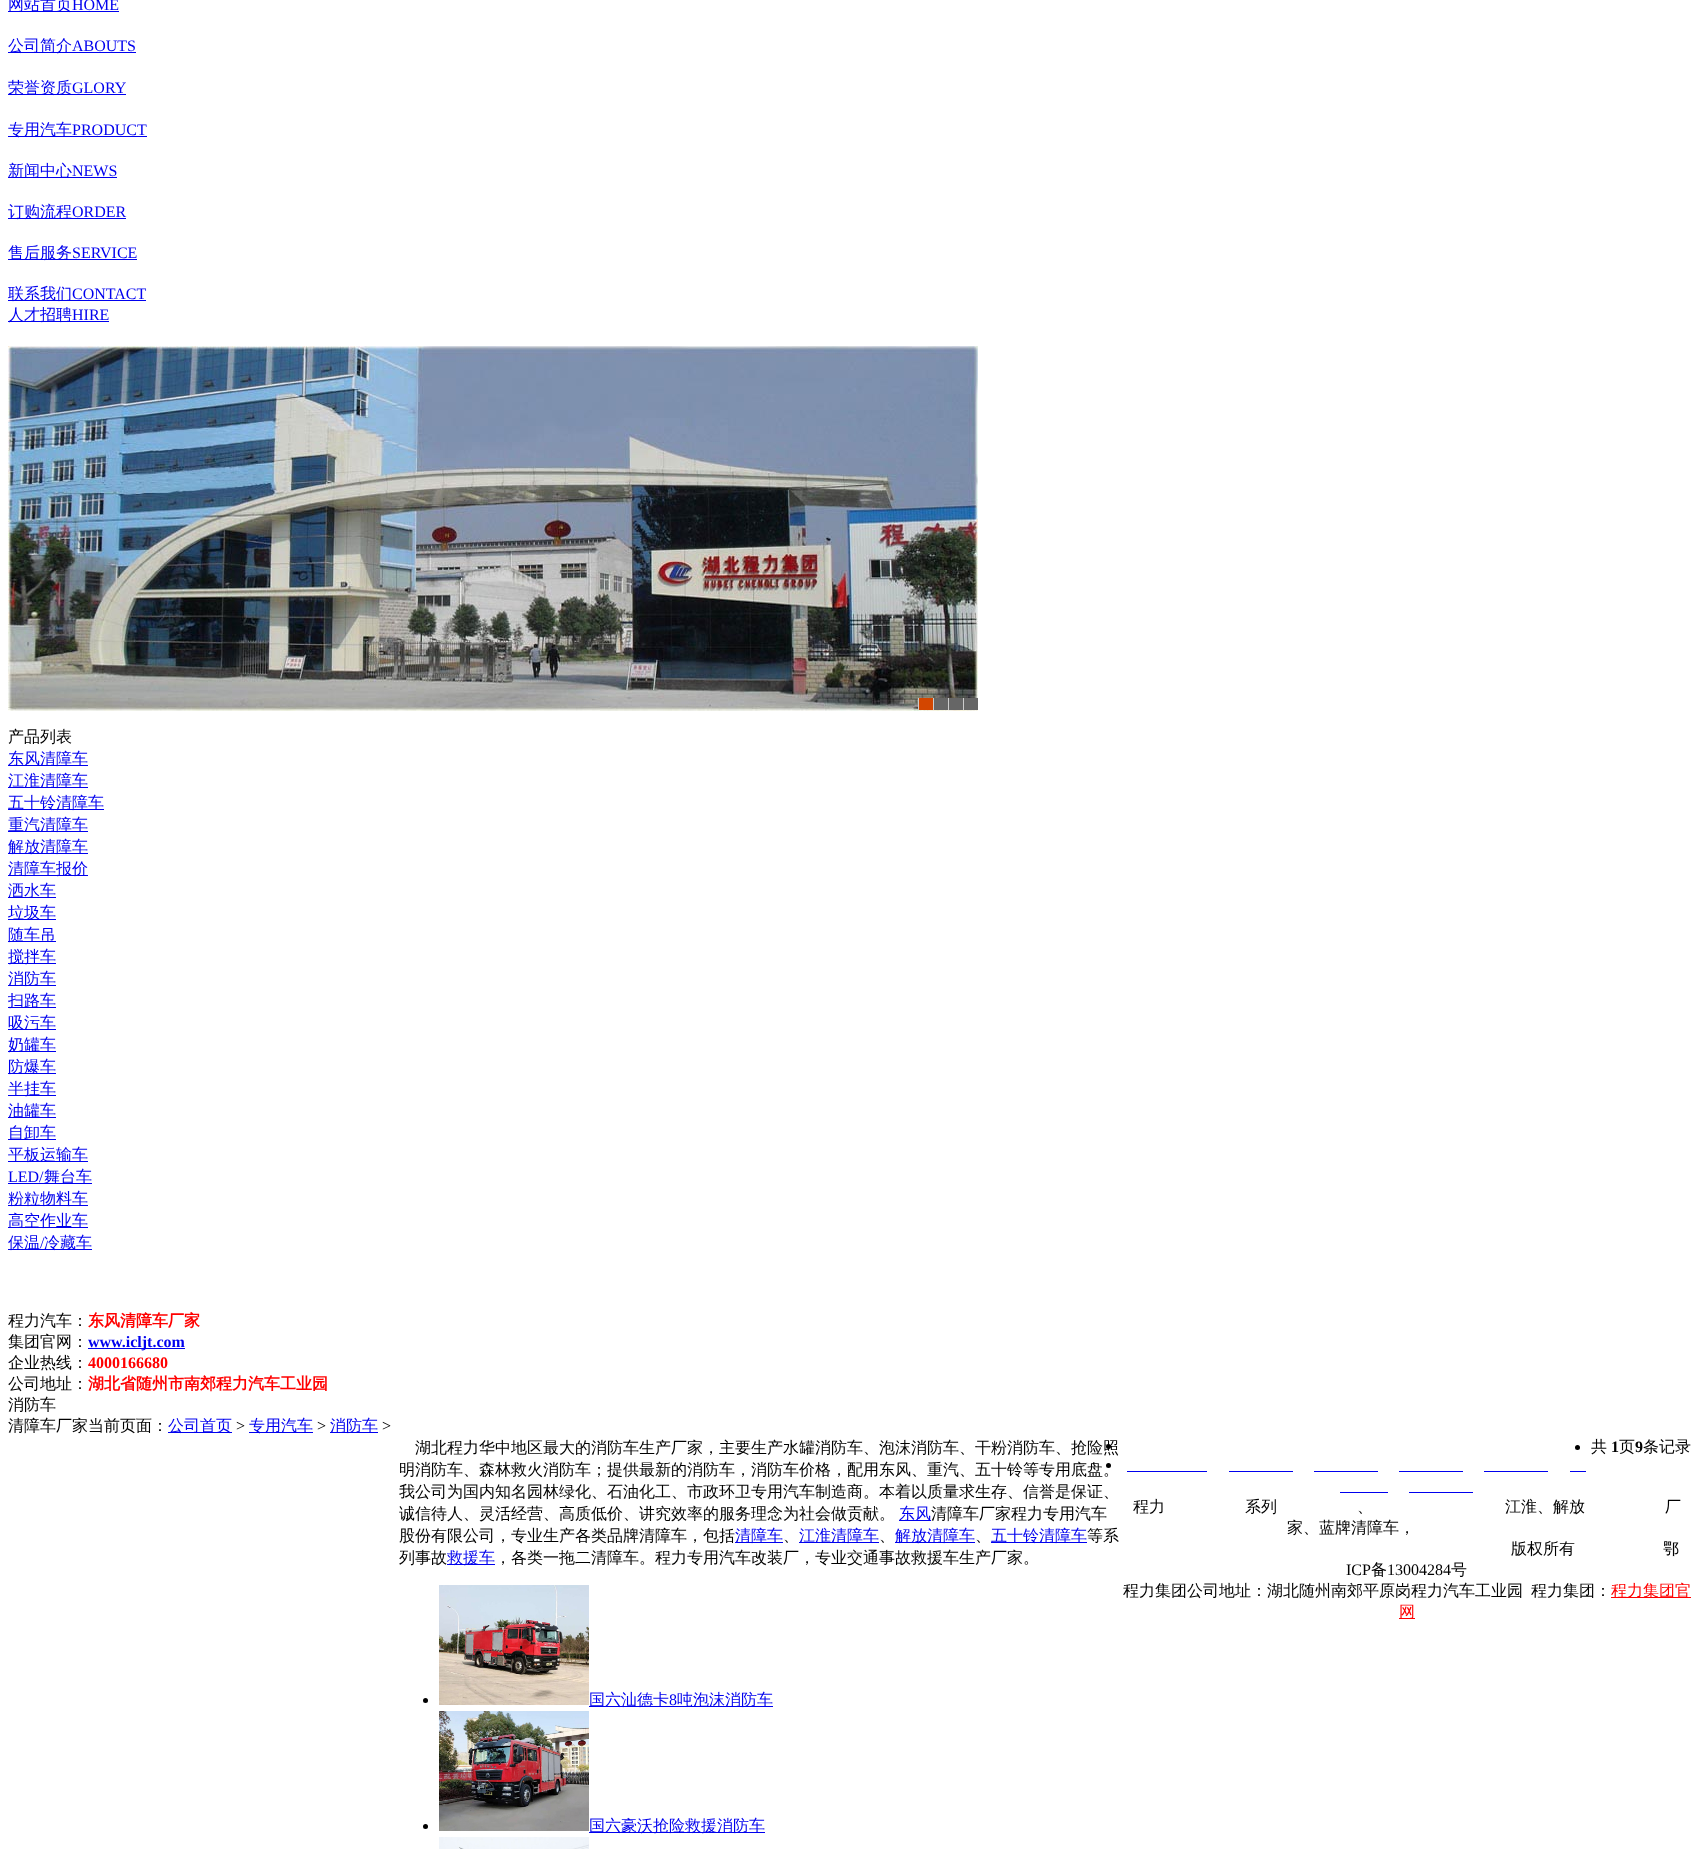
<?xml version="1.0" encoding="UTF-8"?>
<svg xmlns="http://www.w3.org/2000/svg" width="1699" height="1849">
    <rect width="100%" height="100%" fill="#FFFFFF"/>
    <rect x="8" y="11" width="111" height="1" fill="#0000EE"/>
    <text x="8" y="10" font-family="WenQuanYi Zen Hei" font-size="16" font-weight="500" fill="#0000EE">网站首页</text>
    <text x="72" y="10" font-family="Liberation Serif" font-size="16" fill="#0000EE">HOME</text>
    <rect x="8" y="52" width="128" height="1" fill="#0000EE"/>
    <text x="8" y="51" font-family="WenQuanYi Zen Hei" font-size="16" font-weight="500" fill="#0000EE">公司简介</text>
    <text x="72" y="51" font-family="Liberation Serif" font-size="16" fill="#0000EE">ABOUTS</text>
    <rect x="8" y="94" width="118" height="1" fill="#0000EE"/>
    <text x="8" y="93" font-family="WenQuanYi Zen Hei" font-size="16" font-weight="500" fill="#0000EE">荣誉资质</text>
    <text x="72" y="93" font-family="Liberation Serif" font-size="16" fill="#0000EE">GLORY</text>
    <rect x="8" y="136" width="139" height="1" fill="#0000EE"/>
    <text x="8" y="135" font-family="WenQuanYi Zen Hei" font-size="16" font-weight="500" fill="#0000EE">专用汽车</text>
    <text x="72" y="135" font-family="Liberation Serif" font-size="16" fill="#0000EE">PRODUCT</text>
    <rect x="8" y="177" width="109" height="1" fill="#0000EE"/>
    <text x="8" y="176" font-family="WenQuanYi Zen Hei" font-size="16" font-weight="500" fill="#0000EE">新闻中心</text>
    <text x="72" y="176" font-family="Liberation Serif" font-size="16" fill="#0000EE">NEWS</text>
    <rect x="8" y="218" width="118" height="1" fill="#0000EE"/>
    <text x="8" y="217" font-family="WenQuanYi Zen Hei" font-size="16" font-weight="500" fill="#0000EE">订购流程</text>
    <text x="72" y="217" font-family="Liberation Serif" font-size="16" fill="#0000EE">ORDER</text>
    <rect x="8" y="259" width="129" height="1" fill="#0000EE"/>
    <text x="8" y="258" font-family="WenQuanYi Zen Hei" font-size="16" font-weight="500" fill="#0000EE">售后服务</text>
    <text x="72" y="258" font-family="Liberation Serif" font-size="16" fill="#0000EE">SERVICE</text>
    <rect x="8" y="300" width="138" height="1" fill="#0000EE"/>
    <text x="8" y="299" font-family="WenQuanYi Zen Hei" font-size="16" font-weight="500" fill="#0000EE">联系我们</text>
    <text x="72" y="299" font-family="Liberation Serif" font-size="16" fill="#0000EE">CONTACT</text>
    <rect x="8" y="321" width="101" height="1" fill="#0000EE"/>
    <text x="8" y="320" font-family="WenQuanYi Zen Hei" font-size="16" font-weight="500" fill="#0000EE">人才招聘</text>
    <text x="72" y="320" font-family="Liberation Serif" font-size="16" fill="#0000EE">HIRE</text>
    <image x="8" y="346" width="970" height="365" href="img_01.png"/>
    <rect x="918" y="698" width="1" height="12" fill="#CCCCCC"/>
    <rect x="919" y="698" width="14" height="12" fill="#D34600"/>
    <rect x="933" y="698" width="1" height="12" fill="#CCCCCC"/>
    <rect x="934" y="698" width="14" height="12" fill="#666666"/>
    <rect x="948" y="698" width="1" height="12" fill="#CCCCCC"/>
    <rect x="949" y="698" width="14" height="12" fill="#666666"/>
    <rect x="963" y="698" width="1" height="12" fill="#CCCCCC"/>
    <rect x="964" y="698" width="14" height="12" fill="#666666"/>
    <text x="8" y="742" font-family="WenQuanYi Zen Hei" font-size="16" font-weight="500" fill="#000000">产品列表</text>
    <rect x="8" y="765" width="80" height="1" fill="#0000EE"/>
    <text x="8" y="764" font-family="WenQuanYi Zen Hei" font-size="16" font-weight="500" fill="#0000EE">东风清障车</text>
    <rect x="8" y="787" width="80" height="1" fill="#0000EE"/>
    <text x="8" y="786" font-family="WenQuanYi Zen Hei" font-size="16" font-weight="500" fill="#0000EE">江淮清障车</text>
    <rect x="8" y="809" width="96" height="1" fill="#0000EE"/>
    <text x="8" y="808" font-family="WenQuanYi Zen Hei" font-size="16" font-weight="500" fill="#0000EE">五十铃清障车</text>
    <rect x="8" y="831" width="80" height="1" fill="#0000EE"/>
    <text x="8" y="830" font-family="WenQuanYi Zen Hei" font-size="16" font-weight="500" fill="#0000EE">重汽清障车</text>
    <rect x="8" y="853" width="80" height="1" fill="#0000EE"/>
    <text x="8" y="852" font-family="WenQuanYi Zen Hei" font-size="16" font-weight="500" fill="#0000EE">解放清障车</text>
    <rect x="8" y="875" width="80" height="1" fill="#0000EE"/>
    <text x="8" y="874" font-family="WenQuanYi Zen Hei" font-size="16" font-weight="500" fill="#0000EE">清障车报价</text>
    <rect x="8" y="897" width="48" height="1" fill="#0000EE"/>
    <text x="8" y="896" font-family="WenQuanYi Zen Hei" font-size="16" font-weight="500" fill="#0000EE">洒水车</text>
    <rect x="8" y="919" width="48" height="1" fill="#0000EE"/>
    <text x="8" y="918" font-family="WenQuanYi Zen Hei" font-size="16" font-weight="500" fill="#0000EE">垃圾车</text>
    <rect x="8" y="941" width="48" height="1" fill="#0000EE"/>
    <text x="8" y="940" font-family="WenQuanYi Zen Hei" font-size="16" font-weight="500" fill="#0000EE">随车吊</text>
    <rect x="8" y="963" width="48" height="1" fill="#0000EE"/>
    <text x="8" y="962" font-family="WenQuanYi Zen Hei" font-size="16" font-weight="500" fill="#0000EE">搅拌车</text>
    <rect x="8" y="985" width="48" height="1" fill="#0000EE"/>
    <text x="8" y="984" font-family="WenQuanYi Zen Hei" font-size="16" font-weight="500" fill="#0000EE">消防车</text>
    <rect x="8" y="1007" width="48" height="1" fill="#0000EE"/>
    <text x="8" y="1006" font-family="WenQuanYi Zen Hei" font-size="16" font-weight="500" fill="#0000EE">扫路车</text>
    <rect x="8" y="1029" width="48" height="1" fill="#0000EE"/>
    <text x="8" y="1028" font-family="WenQuanYi Zen Hei" font-size="16" font-weight="500" fill="#0000EE">吸污车</text>
    <rect x="8" y="1051" width="48" height="1" fill="#0000EE"/>
    <text x="8" y="1050" font-family="WenQuanYi Zen Hei" font-size="16" font-weight="500" fill="#0000EE">奶罐车</text>
    <rect x="8" y="1073" width="48" height="1" fill="#0000EE"/>
    <text x="8" y="1072" font-family="WenQuanYi Zen Hei" font-size="16" font-weight="500" fill="#0000EE">防爆车</text>
    <rect x="8" y="1095" width="48" height="1" fill="#0000EE"/>
    <text x="8" y="1094" font-family="WenQuanYi Zen Hei" font-size="16" font-weight="500" fill="#0000EE">半挂车</text>
    <rect x="8" y="1117" width="48" height="1" fill="#0000EE"/>
    <text x="8" y="1116" font-family="WenQuanYi Zen Hei" font-size="16" font-weight="500" fill="#0000EE">油罐车</text>
    <rect x="8" y="1139" width="48" height="1" fill="#0000EE"/>
    <text x="8" y="1138" font-family="WenQuanYi Zen Hei" font-size="16" font-weight="500" fill="#0000EE">自卸车</text>
    <rect x="8" y="1161" width="80" height="1" fill="#0000EE"/>
    <text x="8" y="1160" font-family="WenQuanYi Zen Hei" font-size="16" font-weight="500" fill="#0000EE">平板运输车</text>
    <text x="8" y="1182" font-family="Liberation Serif" font-size="16" fill="#0000EE">LED/</text>
    <rect x="8" y="1183" width="84" height="1" fill="#0000EE"/>
    <text x="44" y="1182" font-family="WenQuanYi Zen Hei" font-size="16" font-weight="500" fill="#0000EE">舞台车</text>
    <rect x="8" y="1205" width="80" height="1" fill="#0000EE"/>
    <text x="8" y="1204" font-family="WenQuanYi Zen Hei" font-size="16" font-weight="500" fill="#0000EE">粉粒物料车</text>
    <rect x="8" y="1227" width="80" height="1" fill="#0000EE"/>
    <text x="8" y="1226" font-family="WenQuanYi Zen Hei" font-size="16" font-weight="500" fill="#0000EE">高空作业车</text>
    <rect x="8" y="1249" width="84" height="1" fill="#0000EE"/>
    <text x="8" y="1248" font-family="WenQuanYi Zen Hei" font-size="16" font-weight="500" fill="#0000EE">保温</text>
    <text x="40" y="1248" font-family="Liberation Serif" font-size="16" fill="#0000EE">/</text>
    <text x="44" y="1248" font-family="WenQuanYi Zen Hei" font-size="16" font-weight="500" fill="#0000EE">冷藏车</text>
    <text x="8" y="1326" font-family="WenQuanYi Zen Hei" font-size="16" font-weight="500" fill="#000000">程力汽车：</text>
    <text x="88" y="1326" font-family="WenQuanYi Zen Hei" font-size="16" font-weight="700" fill="#FF0000">东风清障车厂家</text>
    <text x="8" y="1347" font-family="WenQuanYi Zen Hei" font-size="16" font-weight="500" fill="#000000">集团官网：</text>
    <rect x="88" y="1348" width="97" height="1" fill="#0000EE"/>
    <text x="88" y="1347" font-family="Liberation Serif" font-size="16" font-weight="700" fill="#0000EE">www.icljt.com</text>
    <text x="8" y="1368" font-family="WenQuanYi Zen Hei" font-size="16" font-weight="500" fill="#000000">企业热线：</text>
    <text x="88" y="1368" font-family="Liberation Serif" font-size="16" font-weight="700" fill="#FF0000">4000166680</text>
    <text x="8" y="1389" font-family="WenQuanYi Zen Hei" font-size="16" font-weight="500" fill="#000000">公司地址：</text>
    <text x="88" y="1389" font-family="WenQuanYi Zen Hei" font-size="16" font-weight="700" fill="#FF0000">湖北省随州市南郊程力汽车工业园</text>
    <text font-family="WenQuanYi Zen Hei" font-size="16" font-weight="500" fill="#000000">
        <tspan x="8" y="1410">消防车</tspan>
        <tspan x="8" y="1431">清障车厂家当前页面：</tspan>
    </text>
    <rect x="168" y="1432" width="64" height="1" fill="#0000EE"/>
    <text x="168" y="1431" font-family="WenQuanYi Zen Hei" font-size="16" font-weight="500" fill="#0000EE">公司首页</text>
    <text x="236" y="1431" font-family="Liberation Serif" font-size="16" fill="#000000">&gt;</text>
    <rect x="249" y="1432" width="64" height="1" fill="#0000EE"/>
    <text x="249" y="1431" font-family="WenQuanYi Zen Hei" font-size="16" font-weight="500" fill="#0000EE">专用汽车</text>
    <text x="317" y="1431" font-family="Liberation Serif" font-size="16" fill="#000000">&gt;</text>
    <rect x="330" y="1432" width="48" height="1" fill="#0000EE"/>
    <text x="330" y="1431" font-family="WenQuanYi Zen Hei" font-size="16" font-weight="500" fill="#0000EE">消防车</text>
    <text x="382" y="1431" font-family="Liberation Serif" font-size="16" fill="#000000">&gt;</text>
    <circle cx="1108.5" cy="1446.5" r="2.5" fill="#000000"/>
    <text x="415" y="1453" font-family="WenQuanYi Zen Hei" font-size="16" font-weight="500" fill="#000000">湖北程力华中地区最大的消防车生产厂家，主要生产水罐消防车、泡沫消防车、干粉消防车、抢险照</text>
    <circle cx="1108.5" cy="1465.5" r="2.5" fill="#000000"/>
    <text font-family="WenQuanYi Zen Hei" font-size="16" font-weight="500" fill="#000000">
        <tspan x="399" y="1475">明消防车、森林救火消防车；提供最新的消防车，消防车价格，配用东风、重汽、五十铃等专用底盘。</tspan>
        <tspan x="399" y="1497">我公司为国内知名园林绿化、石油化工、市政环卫专用汽车制造商。本着以质量求生存、信誉是保证、</tspan>
        <tspan x="399" y="1519">诚信待人、灵活经营、高质低价、讲究效率的服务理念为社会做贡献。</tspan>
    </text>
    <rect x="899" y="1520" width="32" height="1" fill="#0000EE"/>
    <text x="899" y="1519" font-family="WenQuanYi Zen Hei" font-size="16" font-weight="500" fill="#0000EE">东风</text>
    <text x="931" y="1519" font-family="WenQuanYi Zen Hei" font-size="16" font-weight="500" fill="#000000">清障车厂家程力专用汽车</text>
    <text x="399" y="1541" font-family="WenQuanYi Zen Hei" font-size="16" font-weight="500" fill="#000000">股份有限公司，专业生产各类品牌清障车，包括</text>
    <rect x="735" y="1542" width="48" height="1" fill="#0000EE"/>
    <text x="735" y="1541" font-family="WenQuanYi Zen Hei" font-size="16" font-weight="500" fill="#0000EE">清障车</text>
    <text x="783" y="1541" font-family="WenQuanYi Zen Hei" font-size="16" font-weight="500" fill="#000000">、</text>
    <rect x="799" y="1542" width="80" height="1" fill="#0000EE"/>
    <text x="799" y="1541" font-family="WenQuanYi Zen Hei" font-size="16" font-weight="500" fill="#0000EE">江淮清障车</text>
    <text x="879" y="1541" font-family="WenQuanYi Zen Hei" font-size="16" font-weight="500" fill="#000000">、</text>
    <rect x="895" y="1542" width="80" height="1" fill="#0000EE"/>
    <text x="895" y="1541" font-family="WenQuanYi Zen Hei" font-size="16" font-weight="500" fill="#0000EE">解放清障车</text>
    <text x="975" y="1541" font-family="WenQuanYi Zen Hei" font-size="16" font-weight="500" fill="#000000">、</text>
    <rect x="991" y="1542" width="96" height="1" fill="#0000EE"/>
    <text x="991" y="1541" font-family="WenQuanYi Zen Hei" font-size="16" font-weight="500" fill="#0000EE">五十铃清障车</text>
    <text x="1087" y="1541" font-family="WenQuanYi Zen Hei" font-size="16" font-weight="500" fill="#000000">等系</text>
    <text x="399" y="1563" font-family="WenQuanYi Zen Hei" font-size="16" font-weight="500" fill="#000000">列事故</text>
    <rect x="447" y="1564" width="48" height="1" fill="#0000EE"/>
    <text x="447" y="1563" font-family="WenQuanYi Zen Hei" font-size="16" font-weight="500" fill="#0000EE">救援车</text>
    <text x="495" y="1563" font-family="WenQuanYi Zen Hei" font-size="16" font-weight="500" fill="#000000">，各类一拖二清障车。程力专用汽车改装厂，专业交通事故救援车生产厂家。</text>
    <circle cx="425.5" cy="1700.5" r="2.5" fill="#000000"/>
    <image x="439" y="1585" width="150" height="120" href="img_02.png"/>
    <rect x="589" y="1706" width="184" height="1" fill="#0000EE"/>
    <text x="589" y="1705" font-family="WenQuanYi Zen Hei" font-size="16" font-weight="500" fill="#0000EE">国六汕德卡</text>
    <text x="669" y="1705" font-family="Liberation Serif" font-size="16" fill="#0000EE">8</text>
    <text x="677" y="1705" font-family="WenQuanYi Zen Hei" font-size="16" font-weight="500" fill="#0000EE">吨泡沫消防车</text>
    <circle cx="425.5" cy="1826.5" r="2.5" fill="#000000"/>
    <image x="439" y="1711" width="150" height="120" href="img_03.png"/>
    <rect x="589" y="1832" width="176" height="1" fill="#0000EE"/>
    <text x="589" y="1831" font-family="WenQuanYi Zen Hei" font-size="16" font-weight="500" fill="#0000EE">国六豪沃抢险救援消防车</text>
    <image x="439" y="1837" width="150" height="12" href="img_04.png"/>
    <circle cx="1577.5" cy="1447.5" r="2.5" fill="#000000"/>
    <text x="1591" y="1452" font-family="WenQuanYi Zen Hei" font-size="16" font-weight="500" fill="#000000">共</text>
    <text x="1611" y="1452" font-family="Liberation Serif" font-size="16" font-weight="700" fill="#000000">1</text>
    <text x="1619" y="1452" font-family="WenQuanYi Zen Hei" font-size="16" font-weight="500" fill="#000000">页</text>
    <text x="1635" y="1452" font-family="Liberation Serif" font-size="16" font-weight="700" fill="#000000">9</text>
    <text x="1643" y="1452" font-family="WenQuanYi Zen Hei" font-size="16" font-weight="500" fill="#000000">条记录</text>
    <rect x="1127" y="1471" width="80" height="1" fill="#0000EE"/>
    <rect x="1229" y="1471" width="64" height="1" fill="#0000EE"/>
    <rect x="1314" y="1471" width="64" height="1" fill="#0000EE"/>
    <rect x="1399" y="1471" width="64" height="1" fill="#0000EE"/>
    <rect x="1484" y="1471" width="64" height="1" fill="#0000EE"/>
    <rect x="1570" y="1471" width="16" height="1" fill="#0000EE"/>
    <rect x="1340" y="1492" width="48" height="1" fill="#0000EE"/>
    <rect x="1409" y="1492" width="64" height="1" fill="#0000EE"/>
    <text x="1133" y="1512" font-family="WenQuanYi Zen Hei" font-size="16" font-weight="500" fill="#000000">程力</text>
    <text x="1245" y="1512" font-family="WenQuanYi Zen Hei" font-size="16" font-weight="500" fill="#000000">系列</text>
    <text x="1357" y="1512" font-family="WenQuanYi Zen Hei" font-size="16" font-weight="500" fill="#000000">、</text>
    <text x="1505" y="1512" font-family="WenQuanYi Zen Hei" font-size="16" font-weight="500" fill="#000000">江淮、解放</text>
    <text x="1665" y="1512" font-family="WenQuanYi Zen Hei" font-size="16" font-weight="500" fill="#000000">厂</text>
    <text x="1287" y="1533" font-family="WenQuanYi Zen Hei" font-size="16" font-weight="500" fill="#000000">家、蓝牌清障车，</text>
    <text x="1511" y="1554" font-family="WenQuanYi Zen Hei" font-size="16" font-weight="500" fill="#000000">版权所有</text>
    <text x="1663" y="1554" font-family="WenQuanYi Zen Hei" font-size="16" font-weight="500" fill="#000000">鄂</text>
    <text x="1346" y="1575" font-family="Liberation Serif" font-size="16" fill="#000000">ICP</text>
    <text x="1371" y="1575" font-family="WenQuanYi Zen Hei" font-size="16" font-weight="500" fill="#000000">备</text>
    <text x="1387" y="1575" font-family="Liberation Serif" font-size="16" fill="#000000">13004284</text>
    <text x="1451" y="1575" font-family="WenQuanYi Zen Hei" font-size="16" font-weight="500" fill="#000000">号</text>
    <text x="1123" y="1596" font-family="WenQuanYi Zen Hei" font-size="16" font-weight="500" fill="#000000">程力集团公司地址：湖北随州南郊平原岗程力汽车工业园</text>
    <text x="1531" y="1596" font-family="WenQuanYi Zen Hei" font-size="16" font-weight="500" fill="#000000">程力集团：</text>
    <rect x="1611" y="1597" width="80" height="1" fill="#FF0000"/>
    <text x="1611" y="1596" font-family="WenQuanYi Zen Hei" font-size="16" font-weight="500" fill="#FF0000">程力集团官</text>
    <rect x="1399" y="1618" width="16" height="1" fill="#FF0000"/>
    <text x="1399" y="1617" font-family="WenQuanYi Zen Hei" font-size="16" font-weight="500" fill="#FF0000">网</text>
</svg>
